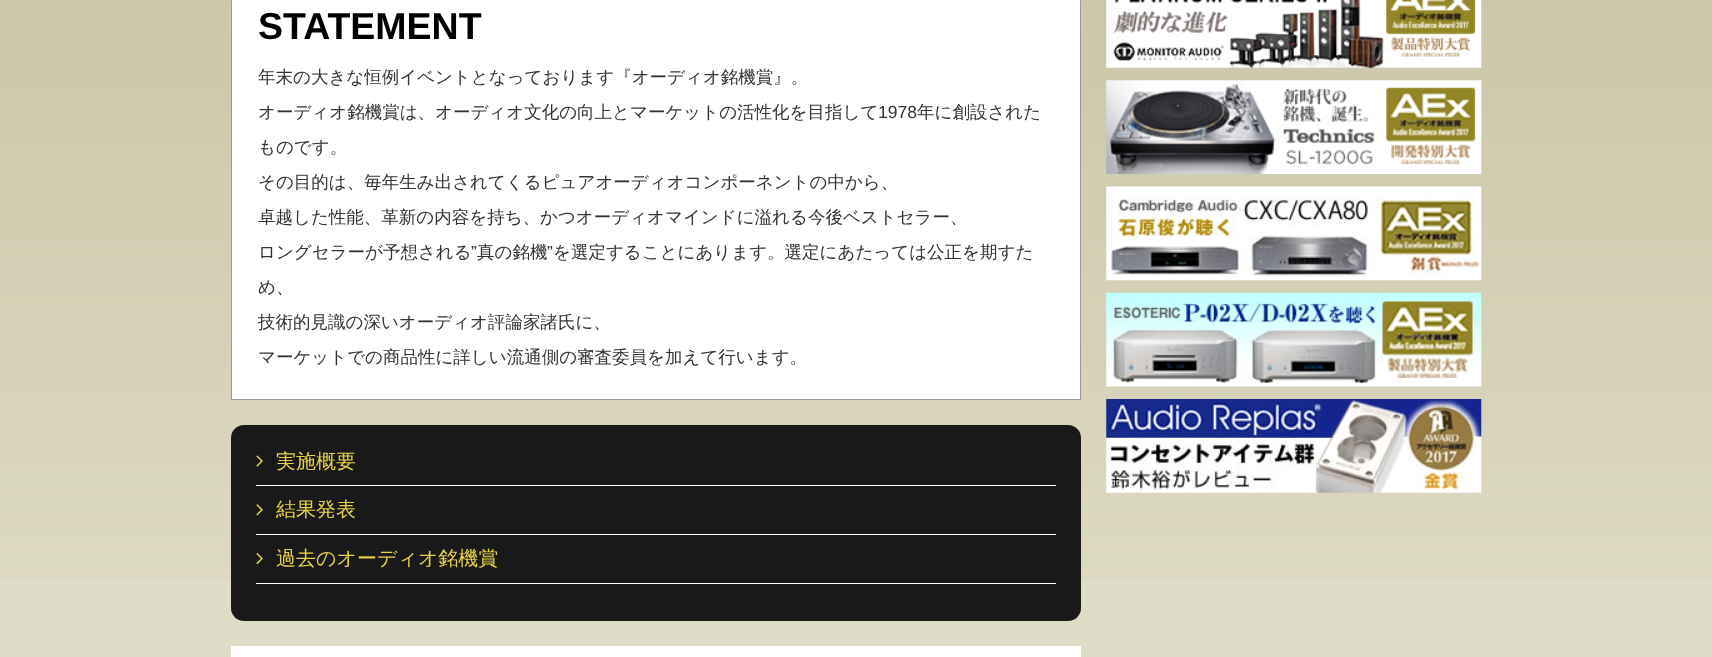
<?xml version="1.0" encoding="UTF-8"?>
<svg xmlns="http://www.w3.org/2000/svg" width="1712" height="657">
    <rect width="100%" height="100%" fill="#DFDCC8"/>
    <image x="0" y="0" width="1712" height="579" href="img_01.png"/>
    <rect x="231.5" y="-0.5" width="849" height="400" fill="#FFFFFF" stroke="#999999"/>
    <text x="258" y="39" font-family="Liberation Sans" font-size="37.5" font-weight="700" fill="#000000">STATEMENT</text>
    <text x="258" y="83" font-family="WenQuanYi Zen Hei" font-size="17.5" font-weight="500" fill="#333333">年末の大きな恒例イベントとなっております『オーディオ銘機賞』。</text>
    <text x="258" y="118" font-family="WenQuanYi Zen Hei" font-size="17.5" font-weight="500" fill="#333333">オーディオ銘機賞は、オーディオ文化の向上とマーケットの活性化を目指して</text>
    <text x="878" y="118" font-family="Liberation Sans" font-size="17.5" fill="#333333">1978</text>
    <text x="917" y="118" font-family="WenQuanYi Zen Hei" font-size="17.5" font-weight="500" fill="#333333">年に創設された</text>
    <text x="258" y="153" font-family="WenQuanYi Zen Hei" font-size="17.5" font-weight="500" fill="#333333">ものです。</text>
    <text x="258" y="188" font-family="WenQuanYi Zen Hei" font-size="17.5" font-weight="500" fill="#333333">その目的は、毎年生み出されてくるピュアオーディオコンポーネントの中から、</text>
    <text x="258" y="223" font-family="WenQuanYi Zen Hei" font-size="17.5" font-weight="500" fill="#333333">卓越した性能、革新の内容を持ち、かつオーディオマインドに溢れる今後ベストセラー、</text>
    <text x="258" y="258" font-family="WenQuanYi Zen Hei" font-size="17.5" font-weight="500" fill="#333333">ロングセラーが予想される</text>
    <text x="471" y="258" font-family="Liberation Sans" font-size="17.5" fill="#333333">”</text>
    <text x="477" y="258" font-family="WenQuanYi Zen Hei" font-size="17.5" font-weight="500" fill="#333333">真の銘機</text>
    <text x="547" y="258" font-family="Liberation Sans" font-size="17.5" fill="#333333">”</text>
    <text x="553" y="258" font-family="WenQuanYi Zen Hei" font-size="17.5" font-weight="500" fill="#333333">を選定することにあります。選定にあたっては公正を期すた</text>
    <text x="258" y="293" font-family="WenQuanYi Zen Hei" font-size="17.5" font-weight="500" fill="#333333">め、</text>
    <text x="258" y="328" font-family="WenQuanYi Zen Hei" font-size="17.5" font-weight="500" fill="#333333">技術的見識の深いオーディオ評論家諸氏に、</text>
    <text x="258" y="363" font-family="WenQuanYi Zen Hei" font-size="17.5" font-weight="500" fill="#333333">マーケットでの商品性に詳しい流通側の審査委員を加えて行います。</text>
    <rect x="231" y="425" width="850" height="196" rx="13" fill="#191919"/>
    <rect x="256" y="485" width="800" height="1" fill="#FFFFFF"/>
    <image x="256" y="455" width="7" height="12" href="img_02.png"/>
    <text x="276" y="468" font-family="WenQuanYi Zen Hei" font-size="20" font-weight="500" fill="#E7D248">実施概要</text>
    <rect x="256" y="534" width="800" height="1" fill="#FFFFFF"/>
    <image x="256" y="504" width="7" height="12" href="img_03.png"/>
    <text x="276" y="516" font-family="WenQuanYi Zen Hei" font-size="20" font-weight="500" fill="#E7D248">結果発表</text>
    <rect x="256" y="583" width="800" height="1" fill="#FFFFFF"/>
    <image x="256" y="553" width="7" height="12" href="img_04.png"/>
    <text x="276" y="565" font-family="WenQuanYi Zen Hei" font-size="20" font-weight="500" fill="#E7D248">過去のオーディオ銘機賞</text>
    <rect x="231" y="646" width="850" height="11" fill="#FFFFFF"/>
    <image x="1106" y="0" width="376" height="68" href="img_05.png"/>
    <image x="1106" y="80" width="376" height="94" href="img_06.png"/>
    <image x="1106" y="186" width="376" height="95" href="img_07.png"/>
    <image x="1106" y="292" width="376" height="95" href="img_08.png"/>
    <image x="1106" y="399" width="376" height="94" href="img_09.png"/>
</svg>
